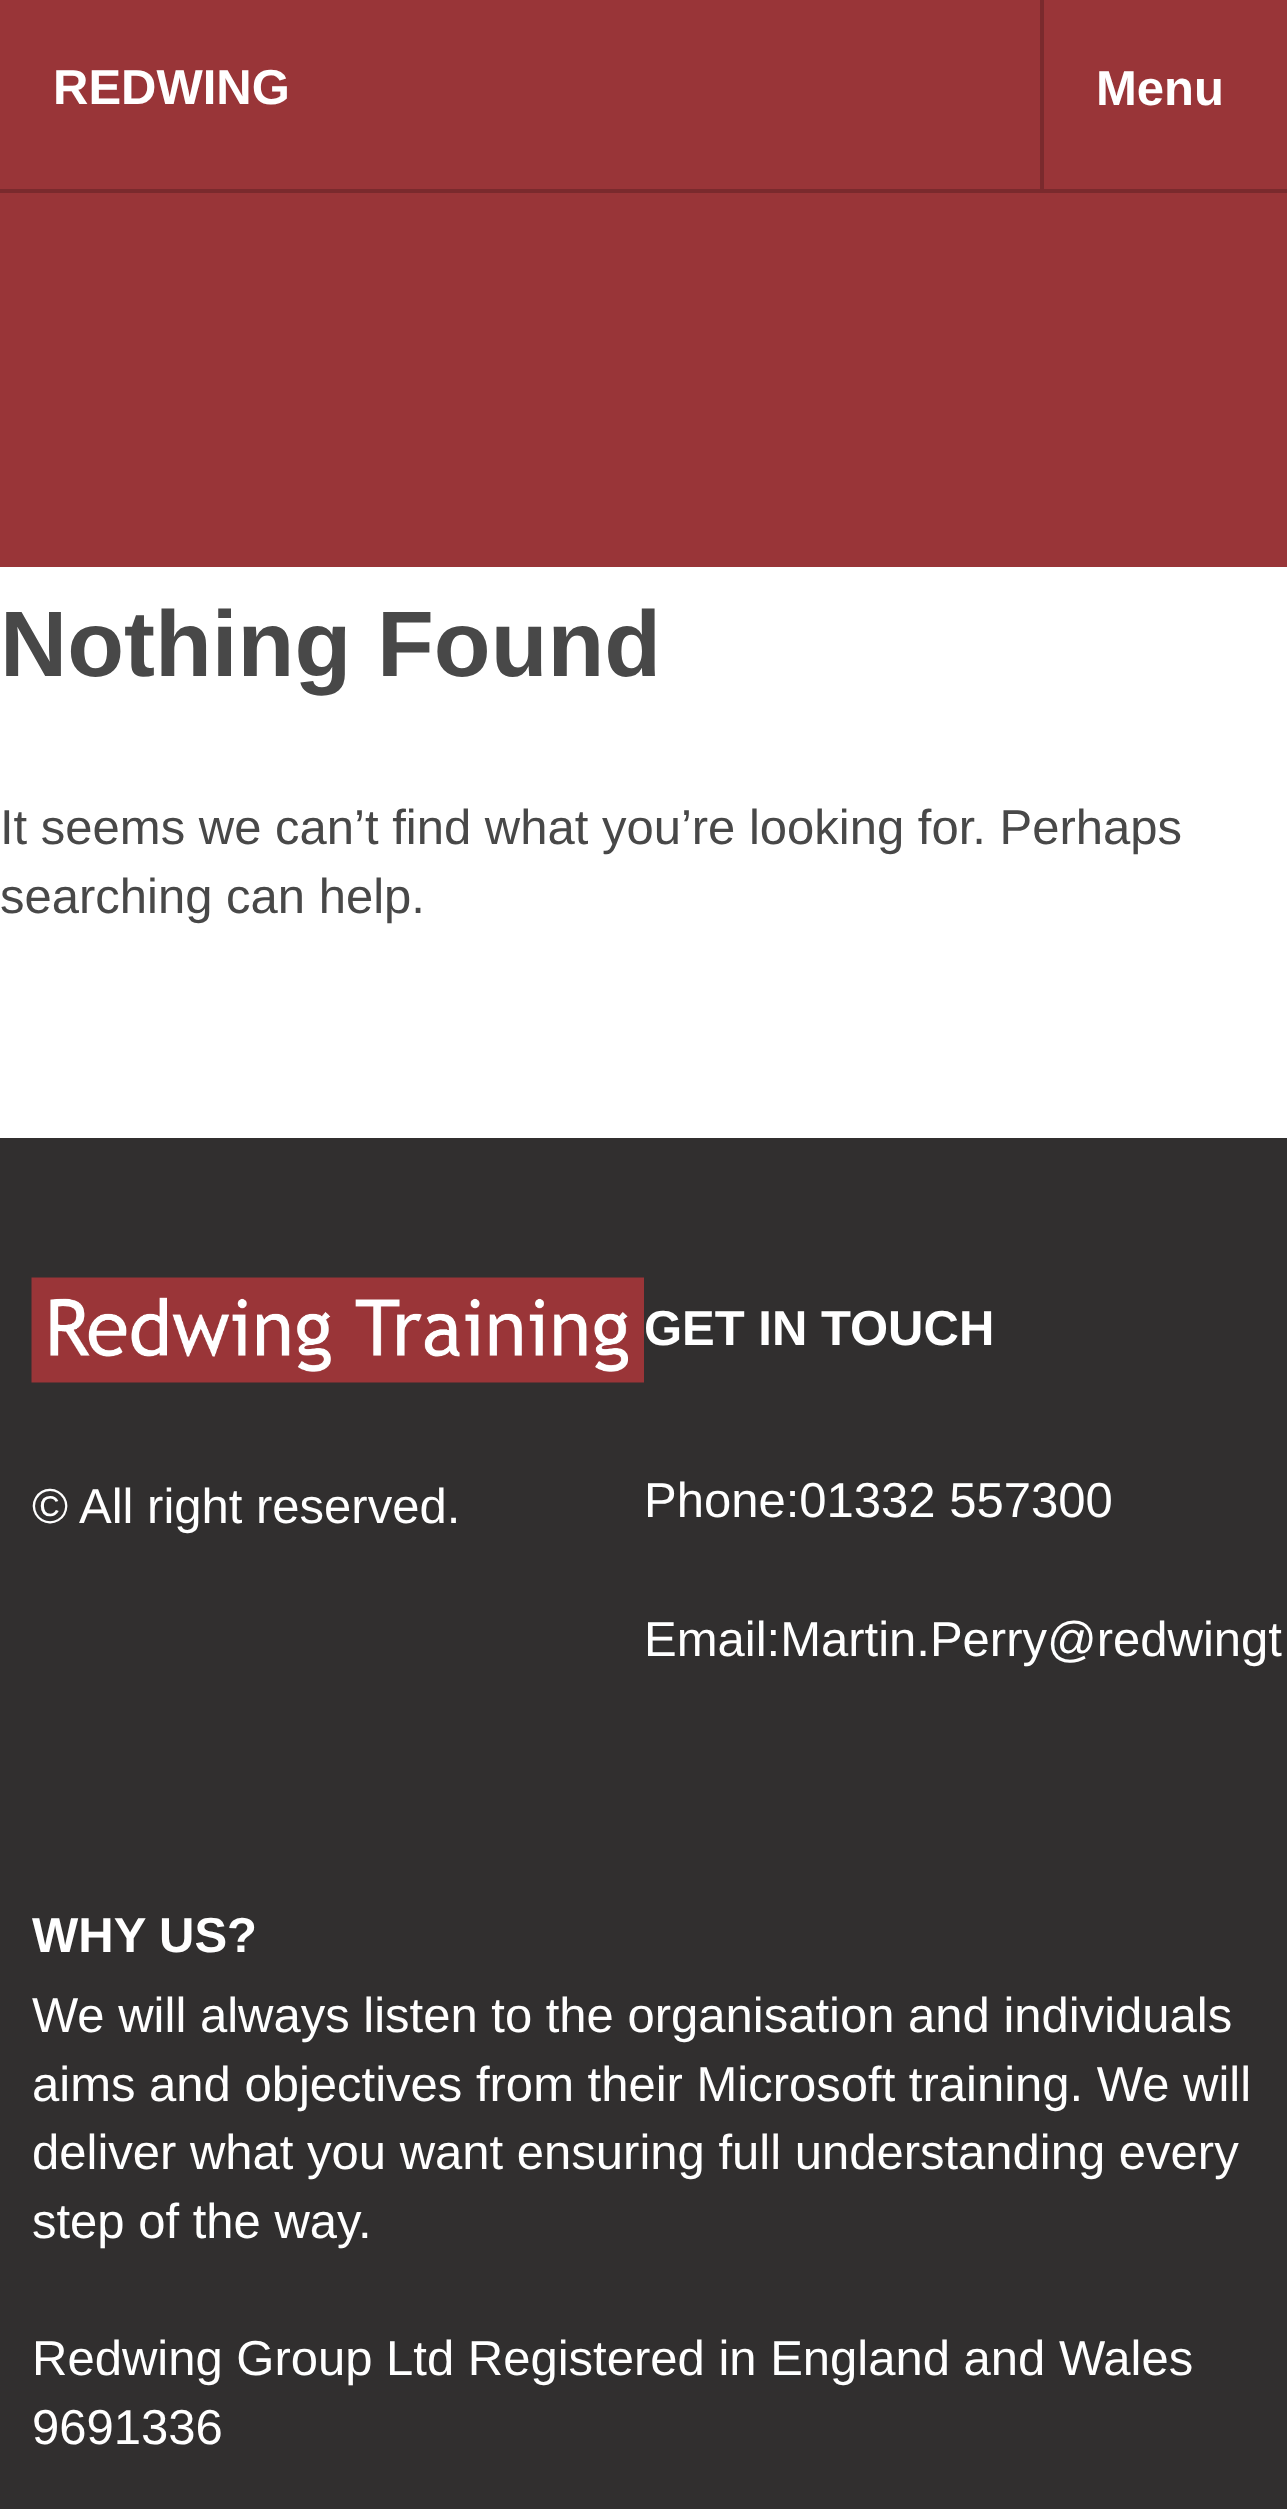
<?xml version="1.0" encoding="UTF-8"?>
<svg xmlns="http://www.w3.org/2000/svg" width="1287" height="2509">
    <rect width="100%" height="100%" fill="#FFFFFF"/>
    <rect x="0" y="0" width="1287" height="189" fill="#993538"/>
    <rect x="0" y="189" width="1287" height="4" fill="#7A2A2D"/>
    <text x="53" y="104" font-family="Liberation Sans" font-size="49" font-weight="700" fill="#FFFFFF">REDWING</text>
    <rect x="1040" y="0" width="4" height="189" fill="#7A2A2D"/>
    <text x="1096" y="105" font-family="Liberation Sans" font-size="49" font-weight="700" fill="#FFFFFF">Menu</text>
    <rect x="0" y="193" width="1287" height="374" fill="#993538"/>
    <text x="0" y="676" font-family="Liberation Sans" font-size="93" font-weight="700" fill="#484848">Nothing Found</text>
    <text font-family="Liberation Sans" font-size="49" fill="#484848">
        <tspan x="0" y="844">It seems we can’t find what you’re looking for. Perhaps</tspan>
        <tspan x="0" y="913">searching can help.</tspan>
    </text>
    <rect x="0" y="1138" width="1287" height="1371" fill="#312F2F"/>
    <image x="31" y="1277" width="613" height="106" href="img_01.png"/>
    <text x="32" y="1523" font-family="Liberation Sans" font-size="49" fill="#FFFFFF">© All right reserved.</text>
    <text x="644" y="1345" font-family="Liberation Sans" font-size="49" font-weight="700" fill="#FFFFFF">GET IN TOUCH</text>
    <text x="644" y="1517" font-family="Liberation Sans" font-size="49" fill="#FFFFFF">Phone:01332 557300</text>
    <text x="644" y="1656" font-family="Liberation Sans" font-size="49" fill="#FFFFFF">Email:Martin.Perry@redwingt</text>
    <text x="32" y="1952" font-family="Liberation Sans" font-size="49" font-weight="700" fill="#FFFFFF">WHY US?</text>
    <text font-family="Liberation Sans" font-size="49" fill="#FFFFFF">
        <tspan x="32" y="2032">We will always listen to the organisation and individuals</tspan>
        <tspan x="32" y="2101">aims and objectives from their Microsoft training. We will</tspan>
        <tspan x="32" y="2169">deliver what you want ensuring full understanding every</tspan>
        <tspan x="32" y="2238">step of the way.</tspan>
    </text>
    <text font-family="Liberation Sans" font-size="49" fill="#FFFFFF">
        <tspan x="32" y="2375">Redwing Group Ltd Registered in England and Wales</tspan>
        <tspan x="32" y="2444">9691336</tspan>
    </text>
</svg>
